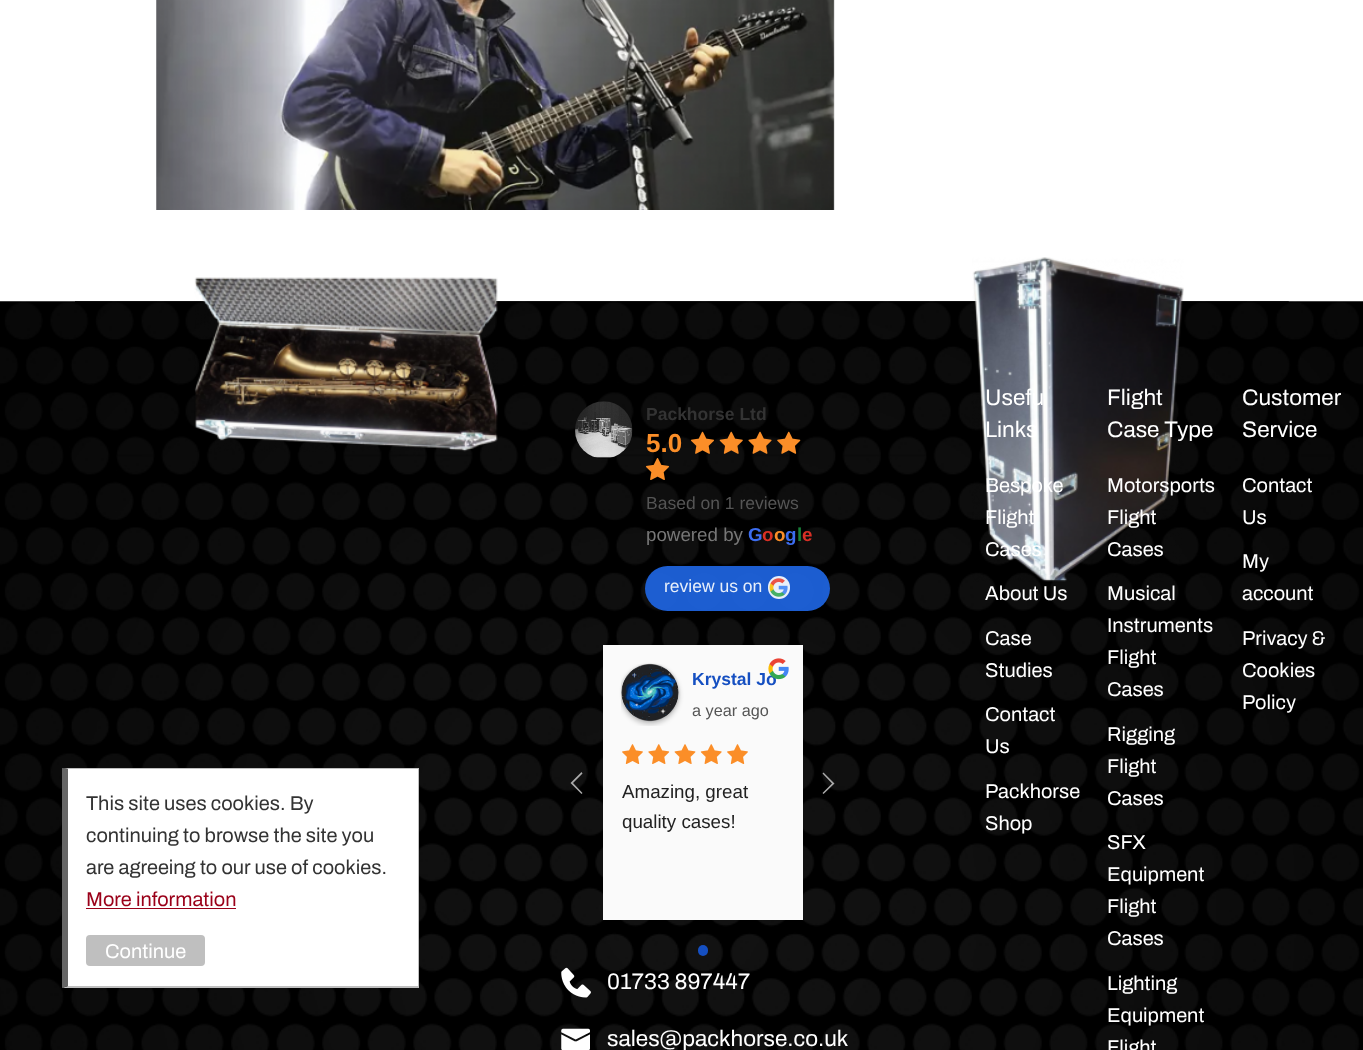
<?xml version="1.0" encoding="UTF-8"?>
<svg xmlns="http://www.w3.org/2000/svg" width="1363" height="1050">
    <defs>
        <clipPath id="clip1"><rect x="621" y="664" width="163" height="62"/></clipPath>
        <filter id="blur1" x="-50%" y="-200%" width="200%" height="500%"><feGaussianBlur stdDeviation="2.5"/></filter>
        <clipPath id="clip2"><path d="M 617 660 H 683 V 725 H 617 Z M 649.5 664 H 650.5 C 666 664 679 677 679 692.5 C 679 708 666 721 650.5 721 H 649.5 C 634 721 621 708 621 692.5 C 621 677 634 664 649.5 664 Z" clip-rule="evenodd"/></clipPath>
        <filter id="blur2" x="-50%" y="-200%" width="200%" height="500%"><feGaussianBlur stdDeviation="1"/></filter>
    </defs>
    <rect width="100%" height="100%" fill="#FFFFFF"/>
    <image x="0" y="301" width="1363" height="749" href="img_04.png"/>
    <rect x="68" y="769" width="350" height="217" fill="#FFFFFF"/>
    <path d="M 62 768 H 419 L 418 769 H 68 Z" fill="#BFBFBF"/>
    <rect x="418" y="768" width="1" height="220" fill="#BFBFBF"/>
    <path d="M 419 988 H 62 L 68 986 H 418 Z" fill="#BFBFBF"/>
    <path d="M 62 988 V 768 L 68 769 V 986 Z" fill="#666666"/>
    <text font-family="Archivo" font-size="20" fill="#333333">
        <tspan x="86" y="810">This site uses cookies. By</tspan>
        <tspan x="86" y="842">continuing to browse the site you</tspan>
        <tspan x="86" y="874">are agreeing to our use of cookies.</tspan>
    </text>
    <text x="86" y="906" font-family="Archivo" font-size="20" fill="#9A0019">More information</text>
    <rect x="86" y="908" width="150" height="1" fill="#9A0019"/>
    <rect x="86" y="935" width="119" height="31" rx="4" fill="#BFBFBF"/>
    <text x="105" y="958" font-family="Archivo" font-size="20" fill="#FFFFFF">Continue</text>
    <image x="156" y="0" width="679" height="210" href="img_01.png"/>
    <image x="75" y="301" width="1214" height="1" href="img_05.png"/>
    <image x="194" y="277" width="304" height="175" href="img_02.png"/>
    <image x="972" y="257" width="212" height="325" href="img_03.png"/>
    <image x="575" y="401" width="58" height="58" href="img_06.png"/>
    <text x="646" y="420" font-family="Liberation Sans" font-size="17.5" font-weight="700" fill="#333333">Packhorse Ltd</text>
    <image x="690" y="431" width="25" height="23" href="img_07.png"/>
    <image x="719" y="431" width="24" height="23" href="img_08.png"/>
    <image x="748" y="431" width="24" height="23" href="img_09.png"/>
    <image x="777" y="431" width="24" height="23" href="img_10.png"/>
    <image x="645" y="458" width="25" height="22" href="img_11.png"/>
    <text x="646" y="452" font-family="Liberation Sans" font-size="26" font-weight="700" fill="#FB8E28">5.0</text>
    <text x="646" y="509" font-family="Liberation Sans" font-size="17.5" fill="#555555">Based on 1 reviews</text>
    <text x="646" y="541" font-family="Liberation Sans" font-size="18.75" fill="#777777">powered by</text>
    <text x="748" y="541" font-family="Liberation Sans" font-size="18.75" font-weight="700" fill="#3C6DF0">G</text>
    <text x="762" y="541" font-family="Liberation Sans" font-size="18.75" font-weight="700" fill="#D93025">o</text>
    <text x="774" y="541" font-family="Liberation Sans" font-size="18.75" font-weight="700" fill="#FB8E28">o</text>
    <text x="785" y="541" font-family="Liberation Sans" font-size="18.75" font-weight="700" fill="#3C6DF0">g</text>
    <text x="797" y="541" font-family="Liberation Sans" font-size="18.75" font-weight="700" fill="#188038">l</text>
    <text x="802" y="541" font-family="Liberation Sans" font-size="18.75" font-weight="700" fill="#D93025">e</text>
    <rect x="645" y="566" width="185" height="45" rx="22.5" fill="#1F67E7" fill-opacity="0.9"/>
    <text x="664" y="592" font-family="Liberation Sans" font-size="17.5" fill="#E8EFFA">review us on</text>
    <rect x="768" y="576" width="22" height="23" rx="11" fill="#E8EFFA"/>
    <image x="769" y="578" width="19" height="19" href="img_12.png"/>
    <path d="M 581.5 794 L 570.5 783 L 581.5 772 L 582.5 773.5 L 573 783 L 582.5 793 Z" fill="#AAAAAA"/>
    <rect x="603" y="645" width="200" height="275" fill="#FAFAFA"/>
    <text x="692" y="685" font-family="Liberation Sans" font-size="17.5" font-weight="700" fill="#154FC1">Krystal Jo</text>
    <image x="768" y="658" width="21" height="22" href="img_13.png"/>
    <g clip-path="url(#clip1)">
        <rect x="621" y="666" width="58" height="58" rx="29" fill="#000000" fill-opacity="0.24" filter="url(#blur1)"/>
    </g>
    <g clip-path="url(#clip2)">
        <rect x="621" y="664" width="58" height="57" rx="28.5" fill="#000000" fill-opacity="0.12" filter="url(#blur2)"/>
    </g>
    <image x="621" y="663" width="58" height="59" href="img_14.png"/>
    <text x="692" y="716" font-family="Liberation Sans" font-size="16.25" fill="#555555">a year ago</text>
    <image x="622" y="744" width="21" height="20" href="img_15.png"/>
    <image x="648" y="744" width="22" height="20" href="img_16.png"/>
    <image x="674" y="744" width="22" height="20" href="img_17.png"/>
    <image x="700" y="744" width="22" height="20" href="img_18.png"/>
    <image x="727" y="744" width="21" height="20" href="img_15.png"/>
    <text font-family="Liberation Sans" font-size="18.75" fill="#222222">
        <tspan x="622" y="798">Amazing, great</tspan>
        <tspan x="622" y="828">quality cases!</tspan>
    </text>
    <path d="M 823.5 794 L 822.5 793 L 832 783.5 L 822.5 773.5 L 823.5 772.5 L 834.5 783.5 Z" fill="#AAAAAA"/>
    <rect x="698" y="945" width="10" height="11" rx="5" fill="#154FC1"/>
    <image x="561" y="967" width="30" height="31" href="img_19.png"/>
    <text x="607" y="989" font-family="Archivo" font-size="22.5" fill="#FFFFFF">01733 897447</text>
    <image x="561" y="1028" width="29" height="22" href="img_20.png"/>
    <text x="607" y="1046" font-family="Archivo" font-size="22.5" fill="#FFFFFF">sales@packhorse.co.uk</text>
    <text font-family="Archivo" font-size="22.5" fill="#FFFFFF">
        <tspan x="985" y="405">Usefu</tspan>
        <tspan x="985" y="437">Links</tspan>
    </text>
    <text font-family="Archivo" font-size="20" fill="#FFFFFF">
        <tspan x="985" y="492">Bespoke</tspan>
        <tspan x="985" y="524">Flight</tspan>
        <tspan x="985" y="556">Cases</tspan>
    </text>
    <text x="985" y="600" font-family="Archivo" font-size="20" fill="#FFFFFF">About Us</text>
    <text font-family="Archivo" font-size="20" fill="#FFFFFF">
        <tspan x="985" y="645">Case</tspan>
        <tspan x="985" y="677">Studies</tspan>
    </text>
    <text font-family="Archivo" font-size="20" fill="#FFFFFF">
        <tspan x="985" y="721">Contact</tspan>
        <tspan x="985" y="753">Us</tspan>
    </text>
    <text font-family="Archivo" font-size="20" fill="#FFFFFF">
        <tspan x="985" y="798">Packhorse</tspan>
        <tspan x="985" y="830">Shop</tspan>
    </text>
    <text font-family="Archivo" font-size="22.5" fill="#FFFFFF">
        <tspan x="1107" y="405">Flight</tspan>
        <tspan x="1107" y="437">Case Type</tspan>
    </text>
    <text font-family="Archivo" font-size="20" fill="#FFFFFF">
        <tspan x="1107" y="492">Motorsports</tspan>
        <tspan x="1107" y="524">Flight</tspan>
        <tspan x="1107" y="556">Cases</tspan>
    </text>
    <text font-family="Archivo" font-size="20" fill="#FFFFFF">
        <tspan x="1107" y="600">Musical</tspan>
        <tspan x="1107" y="632">Instruments</tspan>
        <tspan x="1107" y="664">Flight</tspan>
        <tspan x="1107" y="696">Cases</tspan>
    </text>
    <text font-family="Archivo" font-size="20" fill="#FFFFFF">
        <tspan x="1107" y="741">Rigging</tspan>
        <tspan x="1107" y="773">Flight</tspan>
        <tspan x="1107" y="805">Cases</tspan>
    </text>
    <text font-family="Archivo" font-size="20" fill="#FFFFFF">
        <tspan x="1107" y="849">SFX</tspan>
        <tspan x="1107" y="881">Equipment</tspan>
        <tspan x="1107" y="913">Flight</tspan>
        <tspan x="1107" y="945">Cases</tspan>
    </text>
    <text font-family="Archivo" font-size="20" fill="#FFFFFF">
        <tspan x="1107" y="990">Lighting</tspan>
        <tspan x="1107" y="1022">Equipment</tspan>
        <tspan x="1107" y="1054">Flight</tspan>
    </text>
    <text font-family="Archivo" font-size="22.5" fill="#FFFFFF">
        <tspan x="1242" y="405">Customer</tspan>
        <tspan x="1242" y="437">Service</tspan>
    </text>
    <text font-family="Archivo" font-size="20" fill="#FFFFFF">
        <tspan x="1242" y="492">Contact</tspan>
        <tspan x="1242" y="524">Us</tspan>
    </text>
    <text font-family="Archivo" font-size="20" fill="#FFFFFF">
        <tspan x="1242" y="568">My</tspan>
        <tspan x="1242" y="600">account</tspan>
    </text>
    <text font-family="Archivo" font-size="20" fill="#FFFFFF">
        <tspan x="1242" y="645">Privacy &amp;</tspan>
        <tspan x="1242" y="677">Cookies</tspan>
        <tspan x="1242" y="709">Policy</tspan>
    </text>
</svg>
